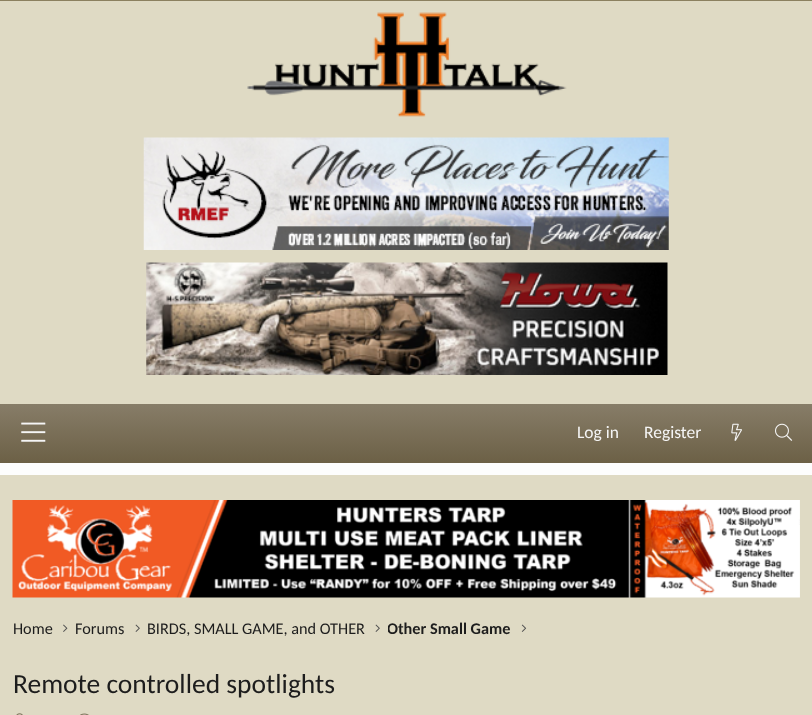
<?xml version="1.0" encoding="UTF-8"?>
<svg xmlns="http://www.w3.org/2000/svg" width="812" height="715">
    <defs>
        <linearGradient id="g1" gradientUnits="userSpaceOnUse" x1="406" y1="404" x2="406" y2="463"><stop offset="0" stop-color="#877D68"/><stop offset="1" stop-color="#6C6046"/></linearGradient>
        <clipPath id="clip1"><rect x="388" y="616" width="122" height="25"/></clipPath>
    </defs>
    <rect width="100%" height="100%" fill="#FDFDFD"/>
    <rect x="0" y="1" width="812" height="403" fill="#DFDAC4"/>
    <rect x="0" y="0" width="812" height="1" fill="#8B805F"/>
    <image x="247" y="12" width="320" height="105" href="img_01.png"/>
    <image x="143" y="137" width="526" height="113" href="img_02.png"/>
    <image x="146" y="262" width="522" height="113" href="img_03.png"/>
    <rect x="0" y="404" width="812" height="59" fill="url(#g1)"/>
    <image x="21" y="422" width="25" height="20" href="img_04.png"/>
    <text x="577" y="438" font-family="Carlito" font-size="17.5" fill="#F5F5F5">Log in</text>
    <text x="644" y="438" font-family="Carlito" font-size="17.5" fill="#F5F5F5">Register</text>
    <image x="731" y="423" width="11" height="18" href="img_05.png"/>
    <image x="775" y="423" width="18" height="18" href="img_06.png"/>
    <rect x="0" y="475" width="812" height="240" fill="#DFDAC4"/>
    <image x="12" y="500" width="788" height="98" href="img_07.png"/>
    <text x="13" y="634" font-family="Carlito" font-size="16.25" fill="#1D1D1D">Home</text>
    <image x="63" y="624" width="5" height="8" href="img_08.png"/>
    <text x="75" y="634" font-family="Carlito" font-size="16.25" fill="#1D1D1D">Forums</text>
    <image x="135" y="624" width="5" height="8" href="img_09.png"/>
    <text x="147" y="634" font-family="Carlito" font-size="16.25" fill="#1D1D1D">BIRDS, SMALL GAME, and OTHER</text>
    <image x="375" y="624" width="5" height="8" href="img_09.png"/>
    <g clip-path="url(#clip1)">
        <text x="387" y="634" font-family="Carlito" font-size="16.25" font-weight="700" fill="#1D1D1D">Other Small Game</text>
    </g>
    <image x="521" y="624" width="6" height="8" href="img_10.png"/>
    <text x="13" y="693" font-family="Carlito" font-size="27.5" fill="#1D1D1D">Remote controlled spotlights</text>
    <image x="16" y="713" width="7" height="2" href="img_11.png"/>
    <image x="80" y="713" width="9" height="2" href="img_12.png"/>
</svg>
